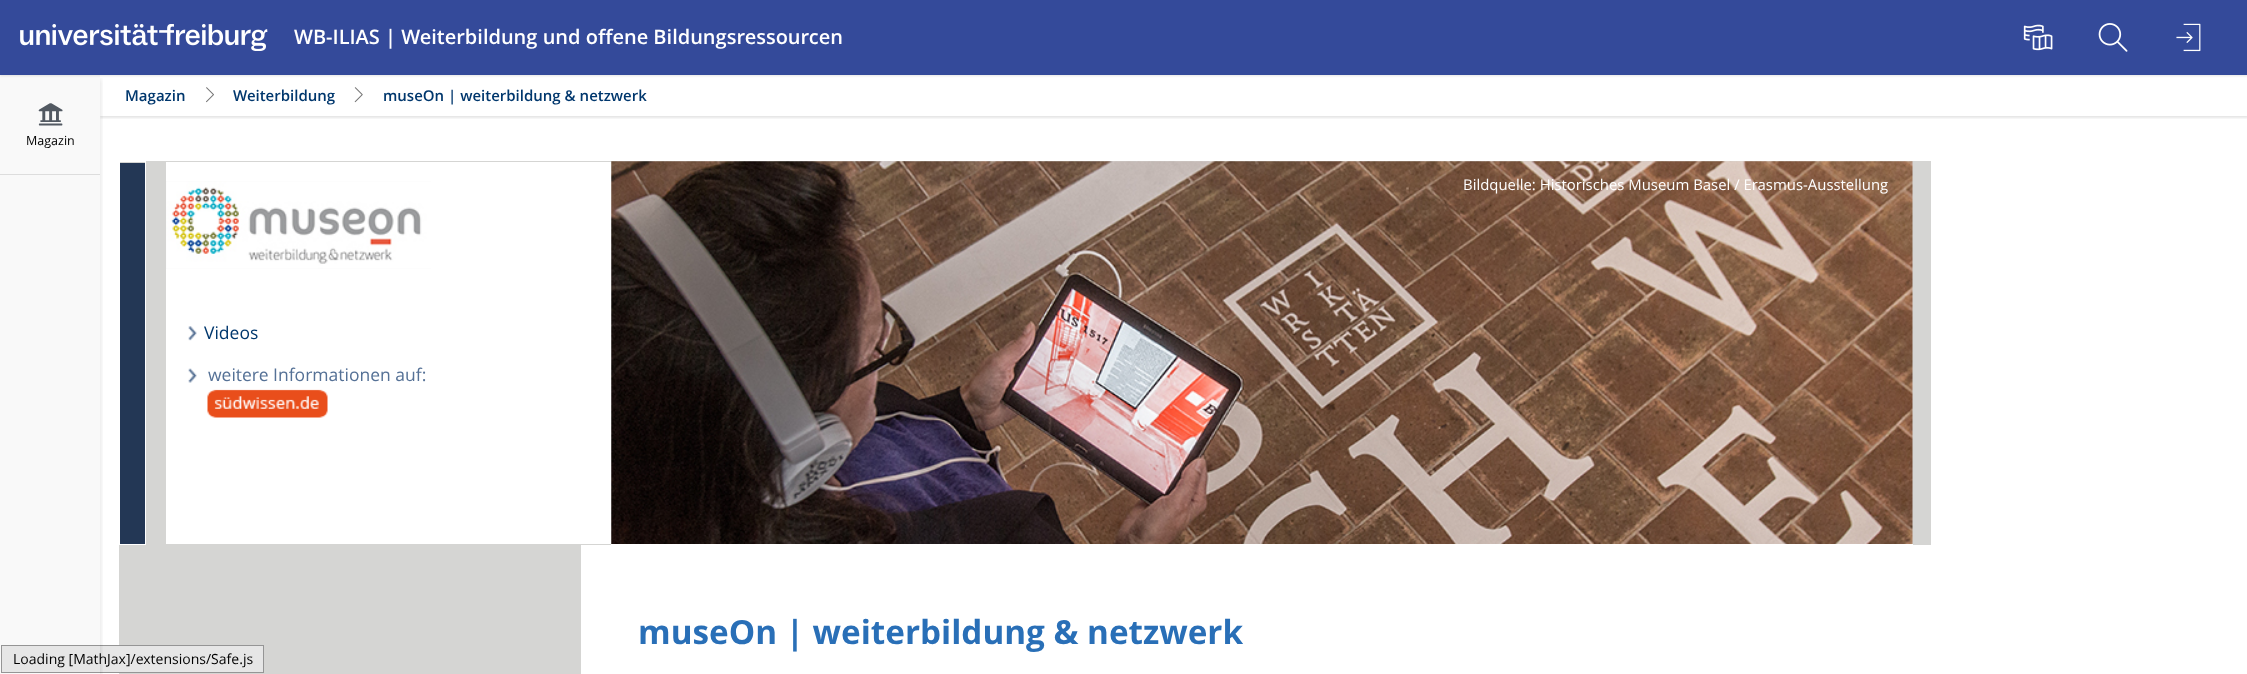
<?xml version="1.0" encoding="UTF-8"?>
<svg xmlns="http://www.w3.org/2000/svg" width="2247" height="674">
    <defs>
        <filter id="blur1" x="-50%" y="-200%" width="200%" height="500%"><feGaussianBlur stdDeviation="1"/></filter>
        <clipPath id="clip1"><rect x="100" y="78" width="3" height="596"/></clipPath>
        <filter id="blur2" x="-50%" y="-200%" width="200%" height="500%"><feGaussianBlur stdDeviation="2.5"/></filter>
        <clipPath id="clip2"><rect x="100" y="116" width="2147" height="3"/></clipPath>
    </defs>
    <rect width="100%" height="100%" fill="#FFFFFF"/>
    <rect x="0" y="75" width="100" height="599" fill="#F9F9F9"/>
    <rect x="0" y="1" width="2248" height="75" fill="#000000" fill-opacity="0.1" filter="url(#blur1)"/>
    <rect x="119" y="161" width="1812" height="513" fill="#D5D5D3"/>
    <rect x="1.5" y="645.5" width="262" height="27" fill="#E6E6E6" stroke="#959595"/>
    <g clip-path="url(#clip1)">
        <rect x="1" y="79" width="100" height="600" fill="#000000" fill-opacity="0.1" filter="url(#blur2)"/>
    </g>
    <g clip-path="url(#clip2)">
        <rect x="100" y="76" width="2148" height="42" fill="#000000" fill-opacity="0.1" filter="url(#blur1)"/>
    </g>
    <rect x="0" y="0" width="2247" height="75" fill="#344A9A"/>
    <image x="20" y="24" width="248" height="27" href="img_01.png"/>
    <text x="294" y="44" font-family="Open Sans" font-size="20" font-weight="600" fill="#FFFFFF">WB-ILIAS | Weiterbildung und offene Bildungsressourcen</text>
    <image x="2023" y="24" width="30" height="27" href="img_02.png"/>
    <image x="2098" y="23" width="30" height="29" href="img_03.png"/>
    <image x="2176" y="23" width="25" height="29" href="img_04.png"/>
    <rect x="0" y="174" width="100" height="1" fill="#DDDDDD"/>
    <image x="38" y="103" width="25" height="23" href="img_05.png"/>
    <text x="26" y="145" font-family="Open Sans" font-size="12.5" fill="#000000">Magazin</text>
    <text x="125" y="101" font-family="Open Sans" font-size="15" font-weight="600" fill="#00376D">Magazin</text>
    <image x="206" y="87" width="8" height="16" href="img_06.png"/>
    <text x="233" y="101" font-family="Open Sans" font-size="15" font-weight="600" fill="#00376D">Weiterbildung</text>
    <image x="354" y="87" width="9" height="16" href="img_07.png"/>
    <text x="383" y="101" font-family="Open Sans" font-size="15" font-weight="600" fill="#00376D">museOn | weiterbildung &amp; netzwerk</text>
    <rect x="120" y="163" width="25" height="381" fill="#233755"/>
    <rect x="119" y="161" width="27" height="1" fill="#FFFFFF"/>
    <rect x="145" y="161" width="1" height="384" fill="#FFFFFF"/>
    <rect x="119" y="544" width="27" height="1" fill="#FFFFFF"/>
    <rect x="119" y="161" width="1" height="384" fill="#FFFFFF"/>
    <rect x="166" y="162" width="446" height="382" fill="#FFFFFF"/>
    <image x="611" y="161" width="1302" height="383" href="img_08.png"/>
    <rect x="611" y="544" width="1302" height="1" fill="#FFFFFF"/>
    <text x="1463" y="190" font-family="Open Sans" font-size="14.9" fill="#FFFFFF">Bildquelle: Historisches Museum Basel / Erasmus-Ausstellung</text>
    <rect x="166" y="181" width="265" height="88" fill="#F5F5F5"/>
    <image x="166" y="181" width="265" height="88" href="img_09.png"/>
    <image x="188" y="326" width="9" height="15" href="img_10.png"/>
    <text x="204" y="339" font-family="Open Sans" font-size="17.5" fill="#00376D">Videos</text>
    <image x="188" y="368" width="140" height="50" href="img_11.png"/>
    <text x="208" y="381" font-family="Open Sans" font-size="17.5" fill="#557196">weitere Informationen auf:</text>
    <rect x="581" y="545" width="1350" height="129" fill="#FFFFFF"/>
    <text x="638" y="644" font-family="Open Sans" font-size="33.25" font-weight="700" fill="#296FB7">museOn | weiterbildung &amp; netzwerk</text>
    <text x="13" y="664" font-family="Open Sans" font-size="14" fill="#000000">Loading [MathJax]/extensions/Safe.js</text>
</svg>
